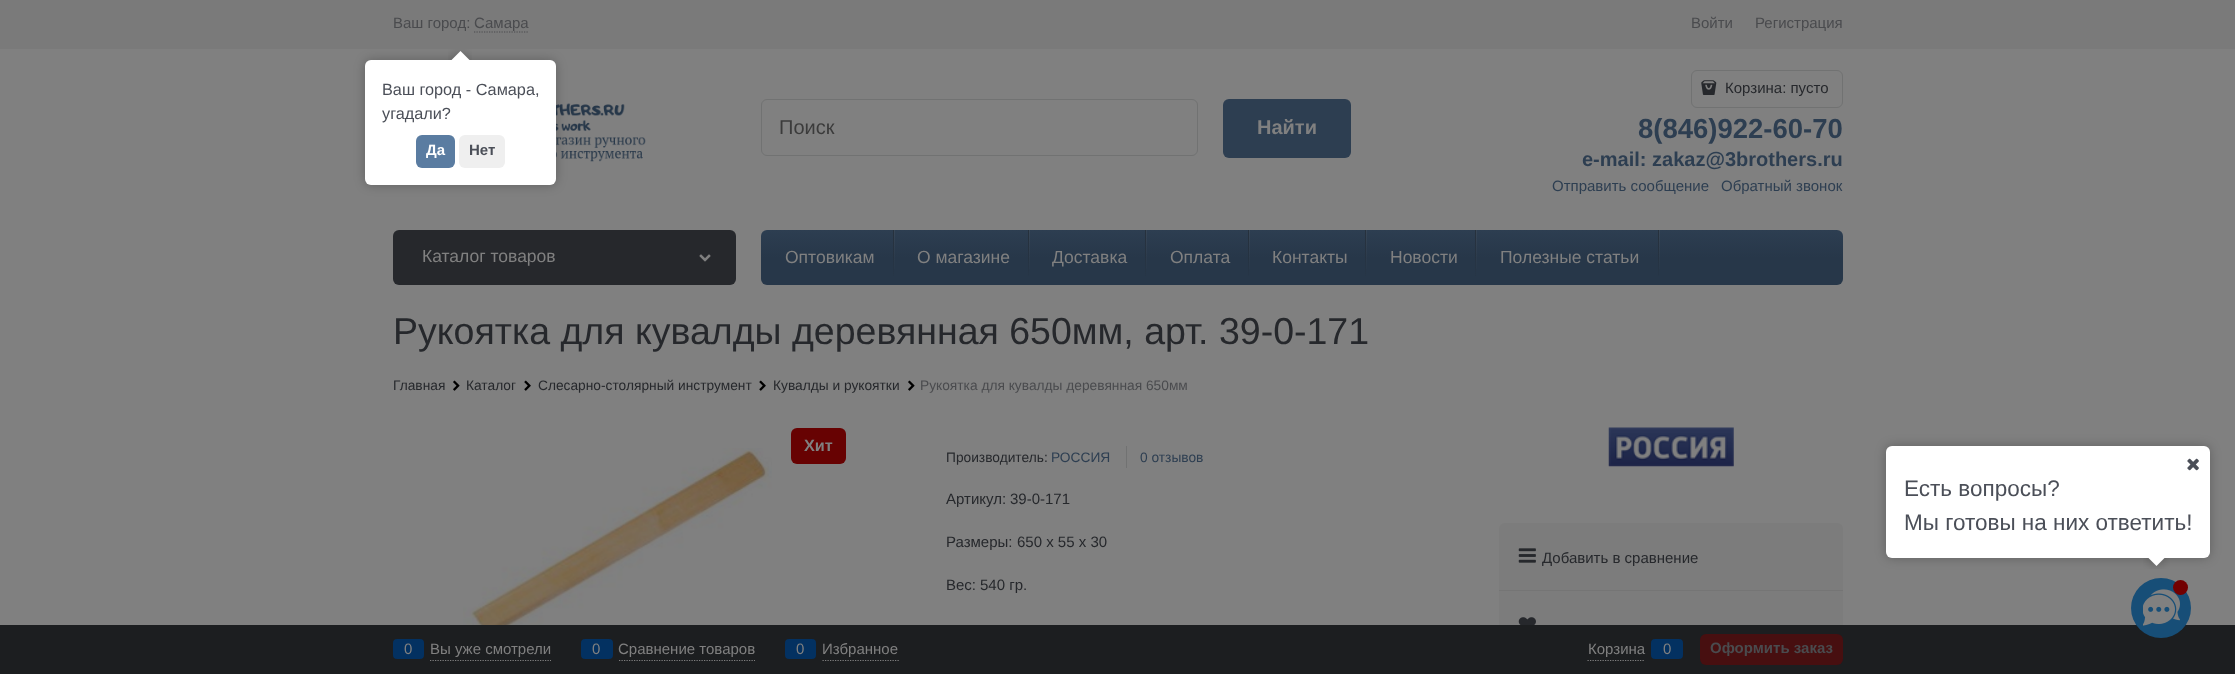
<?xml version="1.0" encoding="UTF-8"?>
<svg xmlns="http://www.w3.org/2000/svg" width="2235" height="674">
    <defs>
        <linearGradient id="g1" gradientUnits="userSpaceOnUse" x1="1302" y1="230" x2="1302" y2="285"><stop offset="0" stop-color="#2D3E51"/><stop offset="0.5" stop-color="#273749"/></linearGradient>
        <linearGradient id="g2" gradientUnits="userSpaceOnUse" x1="894" y1="230" x2="894" y2="285"><stop offset="0" stop-color="#808080" stop-opacity="0.14"/><stop offset="0.72" stop-color="#808080" stop-opacity="0.02"/><stop offset="1" stop-color="#808080" stop-opacity="0"/></linearGradient>
        <linearGradient id="g3" gradientUnits="userSpaceOnUse" x1="893" y1="230" x2="893" y2="285"><stop offset="0" stop-color="#1D1D1D" stop-opacity="0.39"/><stop offset="0.17" stop-color="#1D1D1D" stop-opacity="0.33"/><stop offset="0.61" stop-color="#1D1D1D" stop-opacity="0.12"/><stop offset="0.96" stop-color="#1D1D1D" stop-opacity="0.01"/><stop offset="0.98" stop-color="#808080" stop-opacity="0.01"/><stop offset="1" stop-color="#808080" stop-opacity="0"/></linearGradient>
        <linearGradient id="g4" gradientUnits="userSpaceOnUse" x1="1029" y1="230" x2="1029" y2="285"><stop offset="0" stop-color="#808080" stop-opacity="0.14"/><stop offset="0.72" stop-color="#808080" stop-opacity="0.02"/><stop offset="1" stop-color="#808080" stop-opacity="0"/></linearGradient>
        <linearGradient id="g5" gradientUnits="userSpaceOnUse" x1="1028" y1="230" x2="1028" y2="285"><stop offset="0" stop-color="#1D1D1D" stop-opacity="0.39"/><stop offset="0.17" stop-color="#1D1D1D" stop-opacity="0.33"/><stop offset="0.61" stop-color="#1D1D1D" stop-opacity="0.12"/><stop offset="0.96" stop-color="#1D1D1D" stop-opacity="0.01"/><stop offset="0.98" stop-color="#808080" stop-opacity="0.01"/><stop offset="1" stop-color="#808080" stop-opacity="0"/></linearGradient>
        <linearGradient id="g6" gradientUnits="userSpaceOnUse" x1="1147" y1="230" x2="1147" y2="285"><stop offset="0" stop-color="#808080" stop-opacity="0.14"/><stop offset="0.72" stop-color="#808080" stop-opacity="0.02"/><stop offset="1" stop-color="#808080" stop-opacity="0"/></linearGradient>
        <linearGradient id="g7" gradientUnits="userSpaceOnUse" x1="1146" y1="230" x2="1146" y2="285"><stop offset="0" stop-color="#1D1D1D" stop-opacity="0.39"/><stop offset="0.17" stop-color="#1D1D1D" stop-opacity="0.33"/><stop offset="0.61" stop-color="#1D1D1D" stop-opacity="0.12"/><stop offset="0.96" stop-color="#1D1D1D" stop-opacity="0.01"/><stop offset="0.98" stop-color="#808080" stop-opacity="0.01"/><stop offset="1" stop-color="#808080" stop-opacity="0"/></linearGradient>
        <linearGradient id="g8" gradientUnits="userSpaceOnUse" x1="1249" y1="230" x2="1249" y2="285"><stop offset="0" stop-color="#808080" stop-opacity="0.14"/><stop offset="0.72" stop-color="#808080" stop-opacity="0.02"/><stop offset="1" stop-color="#808080" stop-opacity="0"/></linearGradient>
        <linearGradient id="g9" gradientUnits="userSpaceOnUse" x1="1248" y1="230" x2="1248" y2="285"><stop offset="0" stop-color="#1D1D1D" stop-opacity="0.39"/><stop offset="0.17" stop-color="#1D1D1D" stop-opacity="0.33"/><stop offset="0.61" stop-color="#1D1D1D" stop-opacity="0.12"/><stop offset="0.96" stop-color="#1D1D1D" stop-opacity="0.01"/><stop offset="0.98" stop-color="#808080" stop-opacity="0.01"/><stop offset="1" stop-color="#808080" stop-opacity="0"/></linearGradient>
        <linearGradient id="g10" gradientUnits="userSpaceOnUse" x1="1367" y1="230" x2="1367" y2="285"><stop offset="0" stop-color="#808080" stop-opacity="0.14"/><stop offset="0.72" stop-color="#808080" stop-opacity="0.02"/><stop offset="1" stop-color="#808080" stop-opacity="0"/></linearGradient>
        <linearGradient id="g11" gradientUnits="userSpaceOnUse" x1="1366" y1="230" x2="1366" y2="285"><stop offset="0" stop-color="#1D1D1D" stop-opacity="0.39"/><stop offset="0.17" stop-color="#1D1D1D" stop-opacity="0.33"/><stop offset="0.61" stop-color="#1D1D1D" stop-opacity="0.12"/><stop offset="0.96" stop-color="#1D1D1D" stop-opacity="0.01"/><stop offset="0.98" stop-color="#808080" stop-opacity="0.01"/><stop offset="1" stop-color="#808080" stop-opacity="0"/></linearGradient>
        <linearGradient id="g12" gradientUnits="userSpaceOnUse" x1="1477" y1="230" x2="1477" y2="285"><stop offset="0" stop-color="#808080" stop-opacity="0.14"/><stop offset="0.72" stop-color="#808080" stop-opacity="0.02"/><stop offset="1" stop-color="#808080" stop-opacity="0"/></linearGradient>
        <linearGradient id="g13" gradientUnits="userSpaceOnUse" x1="1476" y1="230" x2="1476" y2="285"><stop offset="0" stop-color="#1D1D1D" stop-opacity="0.39"/><stop offset="0.17" stop-color="#1D1D1D" stop-opacity="0.33"/><stop offset="0.61" stop-color="#1D1D1D" stop-opacity="0.12"/><stop offset="0.96" stop-color="#1D1D1D" stop-opacity="0.01"/><stop offset="0.98" stop-color="#808080" stop-opacity="0.01"/><stop offset="1" stop-color="#808080" stop-opacity="0"/></linearGradient>
        <linearGradient id="g14" gradientUnits="userSpaceOnUse" x1="1659" y1="230" x2="1659" y2="285"><stop offset="0" stop-color="#808080" stop-opacity="0.14"/><stop offset="0.72" stop-color="#808080" stop-opacity="0.02"/><stop offset="1" stop-color="#808080" stop-opacity="0"/></linearGradient>
        <linearGradient id="g15" gradientUnits="userSpaceOnUse" x1="1658" y1="230" x2="1658" y2="285"><stop offset="0" stop-color="#1D1D1D" stop-opacity="0.39"/><stop offset="0.17" stop-color="#1D1D1D" stop-opacity="0.33"/><stop offset="0.61" stop-color="#1D1D1D" stop-opacity="0.12"/><stop offset="0.96" stop-color="#1D1D1D" stop-opacity="0.01"/><stop offset="0.98" stop-color="#808080" stop-opacity="0.01"/><stop offset="1" stop-color="#808080" stop-opacity="0"/></linearGradient>
        <filter id="blur1" x="-50%" y="-200%" width="200%" height="500%"><feGaussianBlur stdDeviation="5.5"/></filter>
        <clipPath id="clip1"><rect x="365" y="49" width="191" height="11"/></clipPath>
        <clipPath id="clip2"><rect x="365" y="49" width="191" height="11"/></clipPath>
        <clipPath id="clip3"><rect x="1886" y="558" width="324" height="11"/></clipPath>
        <clipPath id="clip4"><rect x="1886" y="558" width="324" height="11"/></clipPath>
    </defs>
    <rect width="100%" height="100%" fill="#808080"/>
    <rect x="0" y="0" width="2235" height="49" fill="#7A7A7A"/>
    <text x="393" y="28" font-family="Liberation Sans" font-size="15" fill="#4A4B4E">Ваш город:</text>
    <path d="M 474 32 H 529" fill="none" stroke="#4A4B4E" stroke-width="1.2" stroke-dasharray="1.25 1.25"/>
    <text x="474" y="28" font-family="Liberation Sans" font-size="15" fill="#4A4B4E">Самара</text>
    <text x="1691" y="28" font-family="Liberation Sans" font-size="15" fill="#4A4B4E">Войти</text>
    <text x="1755" y="28" font-family="Liberation Sans" font-size="15" fill="#4A4B4E">Регистрация</text>
    <image x="556" y="97" width="90" height="65" href="img_01.png"/>
    <rect x="761.5" y="99.5" width="436" height="56" rx="5.5" fill="none" stroke="#717272"/>
    <text x="779" y="134" font-family="Liberation Sans" font-size="20" fill="#3B3B3B">Поиск</text>
    <rect x="1223" y="99" width="128" height="59" rx="6" fill="#2D3E51"/>
    <text x="1257" y="134" font-family="Liberation Sans" font-size="20" font-weight="700" fill="#808080">Найти</text>
    <rect x="1691.5" y="70.5" width="151" height="37" rx="5.5" fill="none" stroke="#717272"/>
    <image x="1701" y="80" width="16" height="15" href="img_02.png"/>
    <text x="1725" y="93" font-family="Liberation Sans" font-size="15" fill="#26282C">Корзина: пусто</text>
    <text x="1638" y="138" font-family="Liberation Sans" font-size="27.5" font-weight="700" fill="#2D3E51">8(846)922-60-70</text>
    <text x="1582" y="166" font-family="Liberation Sans" font-size="20" font-weight="700" fill="#2D3E51">e-mail: zakaz@3brothers.ru</text>
    <text x="1552" y="191" font-family="Liberation Sans" font-size="15" fill="#2D3E51">Отправить сообщение</text>
    <text x="1721" y="191" font-family="Liberation Sans" font-size="15" fill="#2D3E51">Обратный звонок</text>
    <rect x="393" y="230" width="343" height="55" rx="6" fill="#26282C"/>
    <text x="422" y="262" font-family="Liberation Sans" font-size="17.5" fill="#808080">Каталог товаров</text>
    <image x="699" y="254" width="12" height="8" href="img_03.png"/>
    <rect x="761" y="230" width="1082" height="55" rx="6" fill="url(#g1)"/>
    <text x="785" y="263" font-family="Liberation Sans" font-size="17.5" fill="#808080">Оптовикам</text>
    <rect x="894" y="230" width="1" height="39" fill="url(#g2)"/>
    <rect x="893" y="230" width="1" height="46" fill="url(#g3)"/>
    <text x="917" y="263" font-family="Liberation Sans" font-size="17.5" fill="#808080">О магазине</text>
    <rect x="1029" y="230" width="1" height="39" fill="url(#g4)"/>
    <rect x="1028" y="230" width="1" height="46" fill="url(#g5)"/>
    <text x="1052" y="263" font-family="Liberation Sans" font-size="17.5" fill="#808080">Доставка</text>
    <rect x="1146" y="230" width="1" height="39" fill="url(#g6)"/>
    <rect x="1145" y="230" width="1" height="46" fill="url(#g7)"/>
    <text x="1170" y="263" font-family="Liberation Sans" font-size="17.5" fill="#808080">Оплата</text>
    <rect x="1249" y="230" width="1" height="39" fill="url(#g8)"/>
    <rect x="1248" y="230" width="1" height="46" fill="url(#g9)"/>
    <text x="1272" y="263" font-family="Liberation Sans" font-size="17.5" fill="#808080">Контакты</text>
    <rect x="1366" y="230" width="1" height="39" fill="url(#g10)"/>
    <rect x="1365" y="230" width="1" height="46" fill="url(#g11)"/>
    <text x="1390" y="263" font-family="Liberation Sans" font-size="17.5" fill="#808080">Новости</text>
    <rect x="1476" y="230" width="1" height="39" fill="url(#g12)"/>
    <rect x="1475" y="230" width="1" height="46" fill="url(#g13)"/>
    <text x="1500" y="263" font-family="Liberation Sans" font-size="17.5" fill="#808080">Полезные статьи</text>
    <rect x="1659" y="230" width="1" height="39" fill="url(#g14)"/>
    <rect x="1658" y="230" width="1" height="46" fill="url(#g15)"/>
    <text x="393" y="344" font-family="Liberation Sans" font-size="37.5" fill="#26282C">Рукоятка для кувалды деревянная 650мм, арт. 39-0-171</text>
    <text x="393" y="390" font-family="Liberation Sans" font-size="13.75" fill="#26282C">Главная</text>
    <image x="453" y="380" width="7" height="11" href="img_04.png"/>
    <text x="466" y="390" font-family="Liberation Sans" font-size="13.75" fill="#26282C">Каталог</text>
    <image x="524" y="380" width="7" height="11" href="img_05.png"/>
    <text x="538" y="390" font-family="Liberation Sans" font-size="13.75" fill="#26282C">Слесарно-столярный инструмент</text>
    <image x="759" y="380" width="7" height="11" href="img_05.png"/>
    <text x="773" y="390" font-family="Liberation Sans" font-size="13.75" fill="#26282C">Кувалды и рукоятки</text>
    <image x="908" y="380" width="7" height="11" href="img_04.png"/>
    <text x="920" y="390" font-family="Liberation Sans" font-size="13.75" fill="#4A4B4E">Рукоятка для кувалды деревянная 650мм</text>
    <rect x="791" y="428" width="55" height="36" rx="6" fill="#670202"/>
    <text x="804" y="451" font-family="Liberation Sans" font-size="16.25" font-weight="700" fill="#808080">Хит</text>
    <image x="463" y="448" width="309" height="177" href="img_06.png"/>
    <text x="946" y="462" font-family="Liberation Sans" font-size="13.75" fill="#26282C">Производитель:</text>
    <text x="1051" y="462" font-family="Liberation Sans" font-size="13.75" fill="#2D3E51">РОССИЯ</text>
    <rect x="1126" y="446" width="1" height="22" fill="#717272"/>
    <text x="1140" y="462" font-family="Liberation Sans" font-size="13.75" fill="#2D3E51">0 отзывов</text>
    <text x="946" y="504" font-family="Liberation Sans" font-size="15" fill="#26282C">Артикул:</text>
    <text x="1010" y="504" font-family="Liberation Sans" font-size="15" fill="#26282C">39-0-171</text>
    <text x="946" y="547" font-family="Liberation Sans" font-size="15" fill="#26282C">Размеры:</text>
    <text x="1017" y="547" font-family="Liberation Sans" font-size="15" fill="#26282C">650 x 55 x 30</text>
    <text x="946" y="590" font-family="Liberation Sans" font-size="15" fill="#26282C">Вес:</text>
    <text x="980" y="590" font-family="Liberation Sans" font-size="15" fill="#26282C">540 гр.</text>
    <image x="1608" y="427" width="126" height="40" href="img_07.png"/>
    <rect x="1499" y="523" width="344" height="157" rx="6" fill="#7C7C7C"/>
    <rect x="1499" y="590" width="344" height="1" fill="#757575"/>
    <image x="1518" y="548" width="18" height="15" href="img_08.png"/>
    <text x="1542" y="563" font-family="Liberation Sans" font-size="15" fill="#26282C">Добавить в сравнение</text>
    <image x="1518" y="617" width="18" height="8" href="img_09.png"/>
    <rect x="0" y="625" width="2235" height="49" fill="#1C1E20"/>
    <path d="M 430 660.5 H 551" fill="none" stroke="#808080" stroke-width="1.2" stroke-dasharray="1.25 1.25"/>
    <rect x="393" y="639" width="31" height="20" rx="4" fill="#033161"/>
    <text x="404" y="654" font-family="Liberation Sans" font-size="15" fill="#808080">0</text>
    <text x="430" y="654" font-family="Liberation Sans" font-size="15" fill="#808080">Вы уже смотрели</text>
    <path d="M 619 660.5 H 755" fill="none" stroke="#808080" stroke-width="1.2" stroke-dasharray="1.25 1.25"/>
    <rect x="581" y="639" width="32" height="20" rx="4" fill="#033161"/>
    <text x="592" y="654" font-family="Liberation Sans" font-size="15" fill="#808080">0</text>
    <text x="618" y="654" font-family="Liberation Sans" font-size="15" fill="#808080">Сравнение товаров</text>
    <path d="M 822.5 660.5 H 899" fill="none" stroke="#808080" stroke-width="1.2" stroke-dasharray="1.25 1.25"/>
    <rect x="785" y="639" width="31" height="20" rx="4" fill="#033161"/>
    <text x="796" y="654" font-family="Liberation Sans" font-size="15" fill="#808080">0</text>
    <text x="822" y="654" font-family="Liberation Sans" font-size="15" fill="#808080">Избранное</text>
    <path d="M 1587.5 660.5 H 1645" fill="none" stroke="#808080" stroke-width="1.2" stroke-dasharray="1.25 1.25"/>
    <text x="1588" y="654" font-family="Liberation Sans" font-size="15" fill="#808080">Корзина</text>
    <rect x="1651" y="639" width="32" height="20" rx="4" fill="#033161"/>
    <text x="1663" y="654" font-family="Liberation Sans" font-size="15" fill="#808080">0</text>
    <rect x="1700" y="634" width="143" height="31" rx="6" fill="#470F10"/>
    <text x="1710" y="653" font-family="Liberation Sans" font-size="15" font-weight="700" fill="#4A4B4E">Оформить заказ</text>
    <rect x="365" y="60" width="191" height="125" rx="6" fill="#000000" fill-opacity="0.25" filter="url(#blur1)"/>
    <rect x="365" y="60" width="191" height="125" rx="6" fill="#FFFFFF"/>
    <g clip-path="url(#clip1)">
        <rect x="454" y="54" width="12" height="12" fill="#000000" fill-opacity="0.25" filter="url(#blur1)"/>
    </g>
    <g clip-path="url(#clip2)">
        <path d="M 460.5 51 L 469.5 60 L 460.5 69 L 451.5 60 Z" fill="#FFFFFF"/>
    </g>
    <text font-family="Liberation Sans" font-size="16.25" fill="#4B4F58">
        <tspan x="382" y="95">Ваш город - Самара,</tspan>
        <tspan x="382" y="119">угадали?</tspan>
    </text>
    <rect x="416" y="135" width="39" height="33" rx="6" fill="#5A7CA1"/>
    <text x="426" y="155" font-family="Liberation Sans" font-size="15" font-weight="700" fill="#FFFFFF">Да</text>
    <rect x="459" y="135" width="46" height="33" rx="6" fill="#EFEFEF"/>
    <text x="469" y="155" font-family="Liberation Sans" font-size="15" font-weight="700" fill="#4B4F58">Нет</text>
    <rect x="1886" y="446" width="324" height="112" rx="6" fill="#000000" fill-opacity="0.25" filter="url(#blur1)"/>
    <rect x="1886" y="446" width="324" height="112" rx="6" fill="#FFFFFF"/>
    <image x="2187" y="458" width="12" height="13" href="img_10.png"/>
    <text font-family="Liberation Sans" font-size="22.5" fill="#4B4F58">
        <tspan x="1904" y="496">Есть вопросы?</tspan>
        <tspan x="1904" y="530">Мы готовы на них ответить!</tspan>
    </text>
    <circle cx="2161" cy="608" r="30" fill="#174E77"/>
    <image x="2143" y="589" width="37" height="37" href="img_11.png"/>
    <circle cx="2180.5" cy="587.5" r="7.5" fill="#720001"/>
    <g clip-path="url(#clip3)">
        <rect x="2150" y="551" width="13" height="13" fill="#000000" fill-opacity="0.25" filter="url(#blur1)"/>
    </g>
    <g clip-path="url(#clip4)">
        <path d="M 2156.5 548.5 L 2165.5 557 L 2156.5 566 L 2147.5 557 Z" fill="#FFFFFF"/>
    </g>
</svg>
